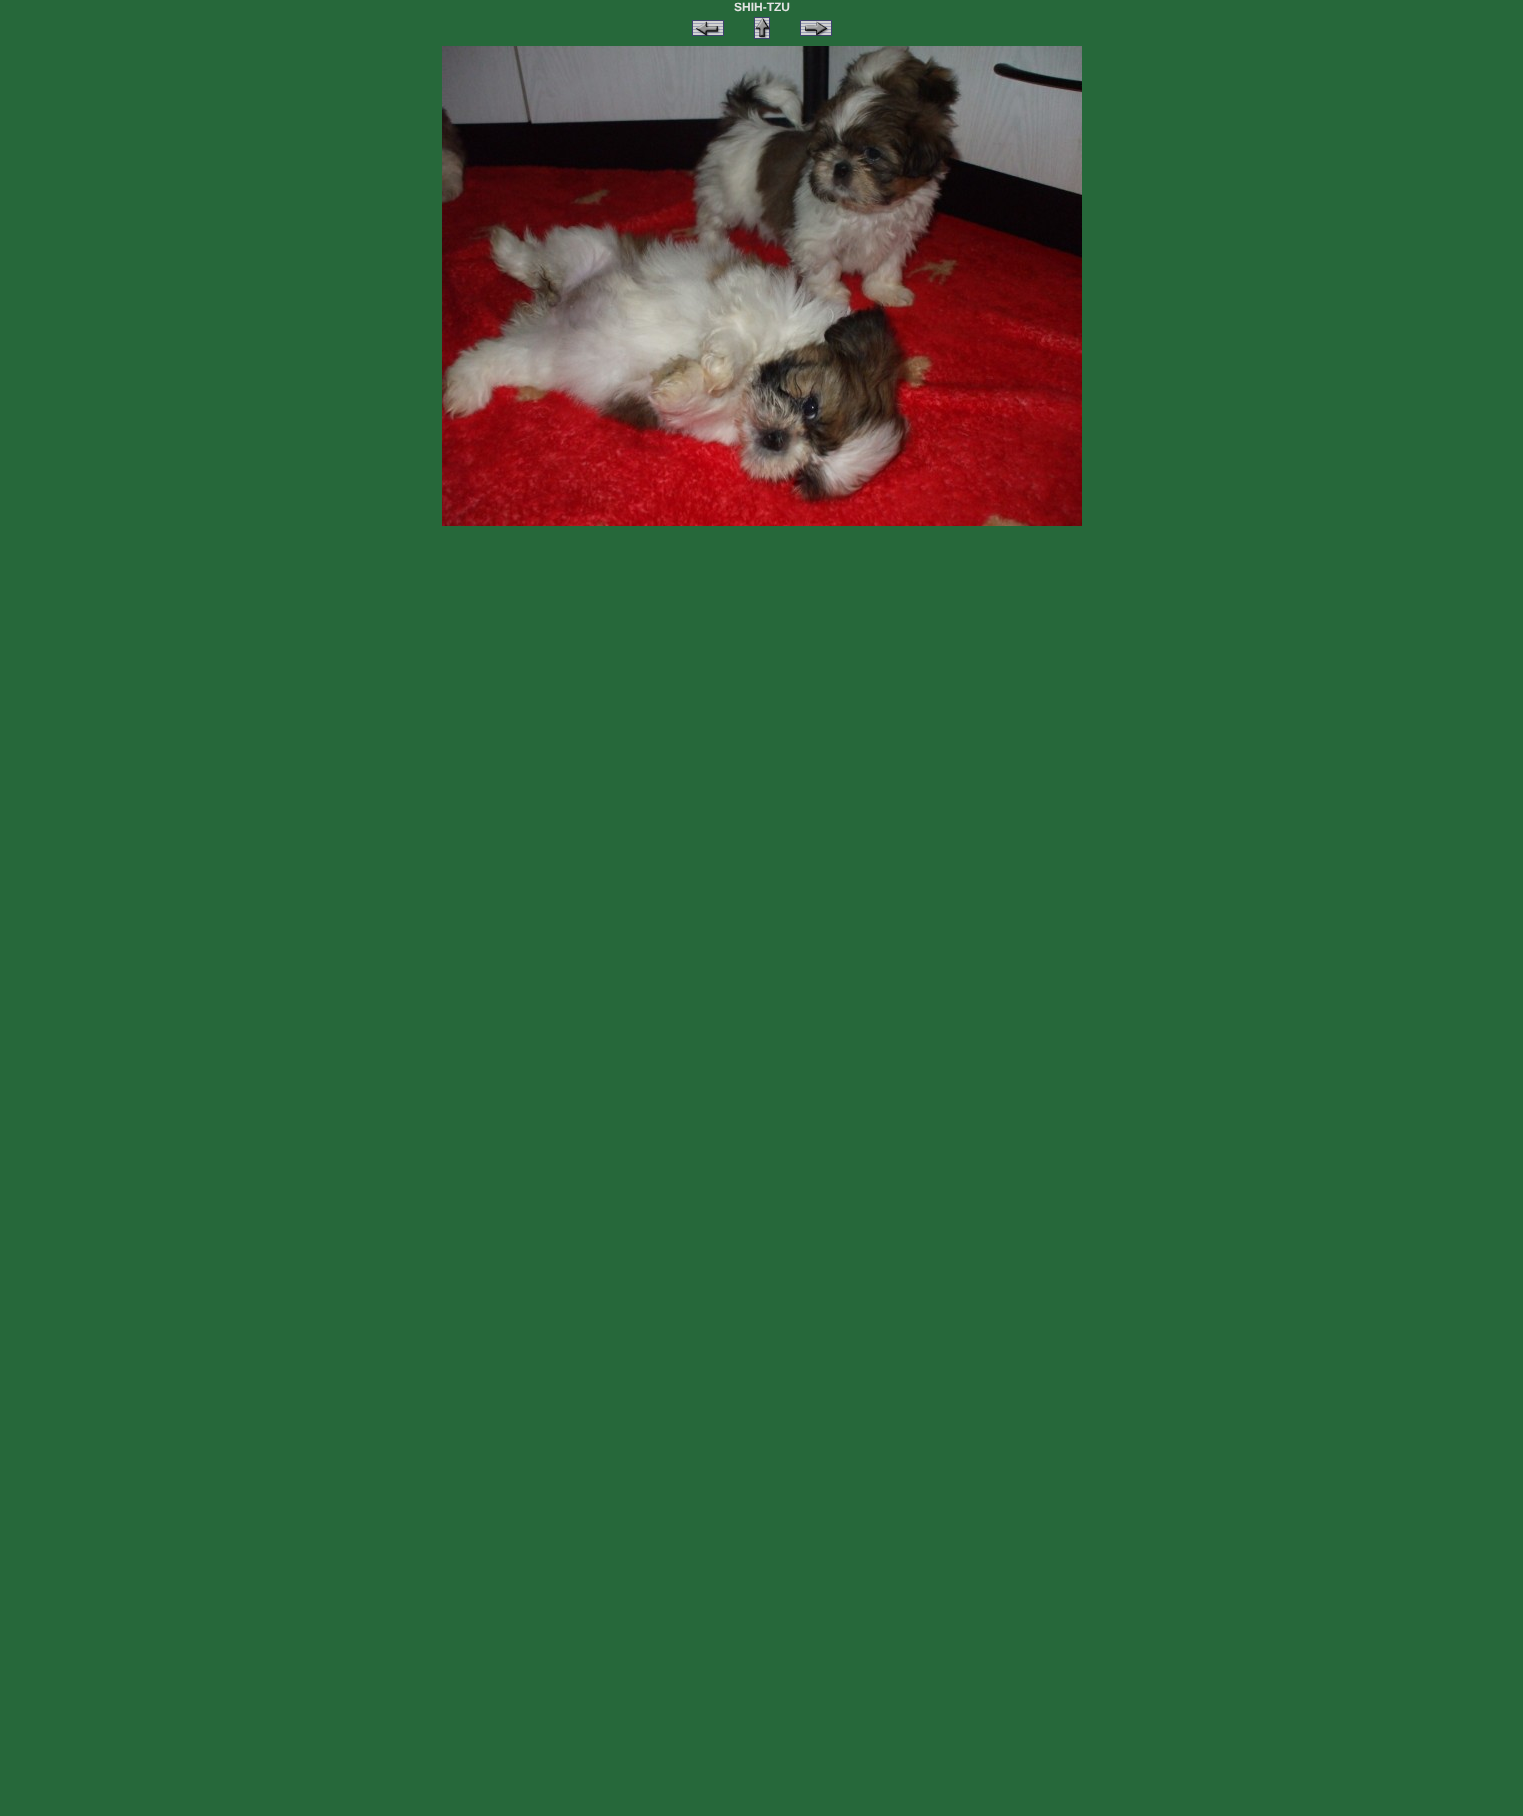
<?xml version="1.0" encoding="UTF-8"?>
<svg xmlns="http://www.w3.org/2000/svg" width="1523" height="1816">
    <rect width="100%" height="100%" fill="#26683A"/>
    <text x="734" y="11" font-family="Liberation Sans" font-size="12" font-weight="700" fill="#E4E4E4">SHIH-TZU</text>
    <image x="692" y="20" width="32" height="16" href="img_01.png"/>
    <image x="754" y="17" width="16" height="22" href="img_02.png"/>
    <image x="800" y="20" width="32" height="16" href="img_03.png"/>
    <image x="442" y="46" width="640" height="480" href="img_04.png"/>
</svg>
